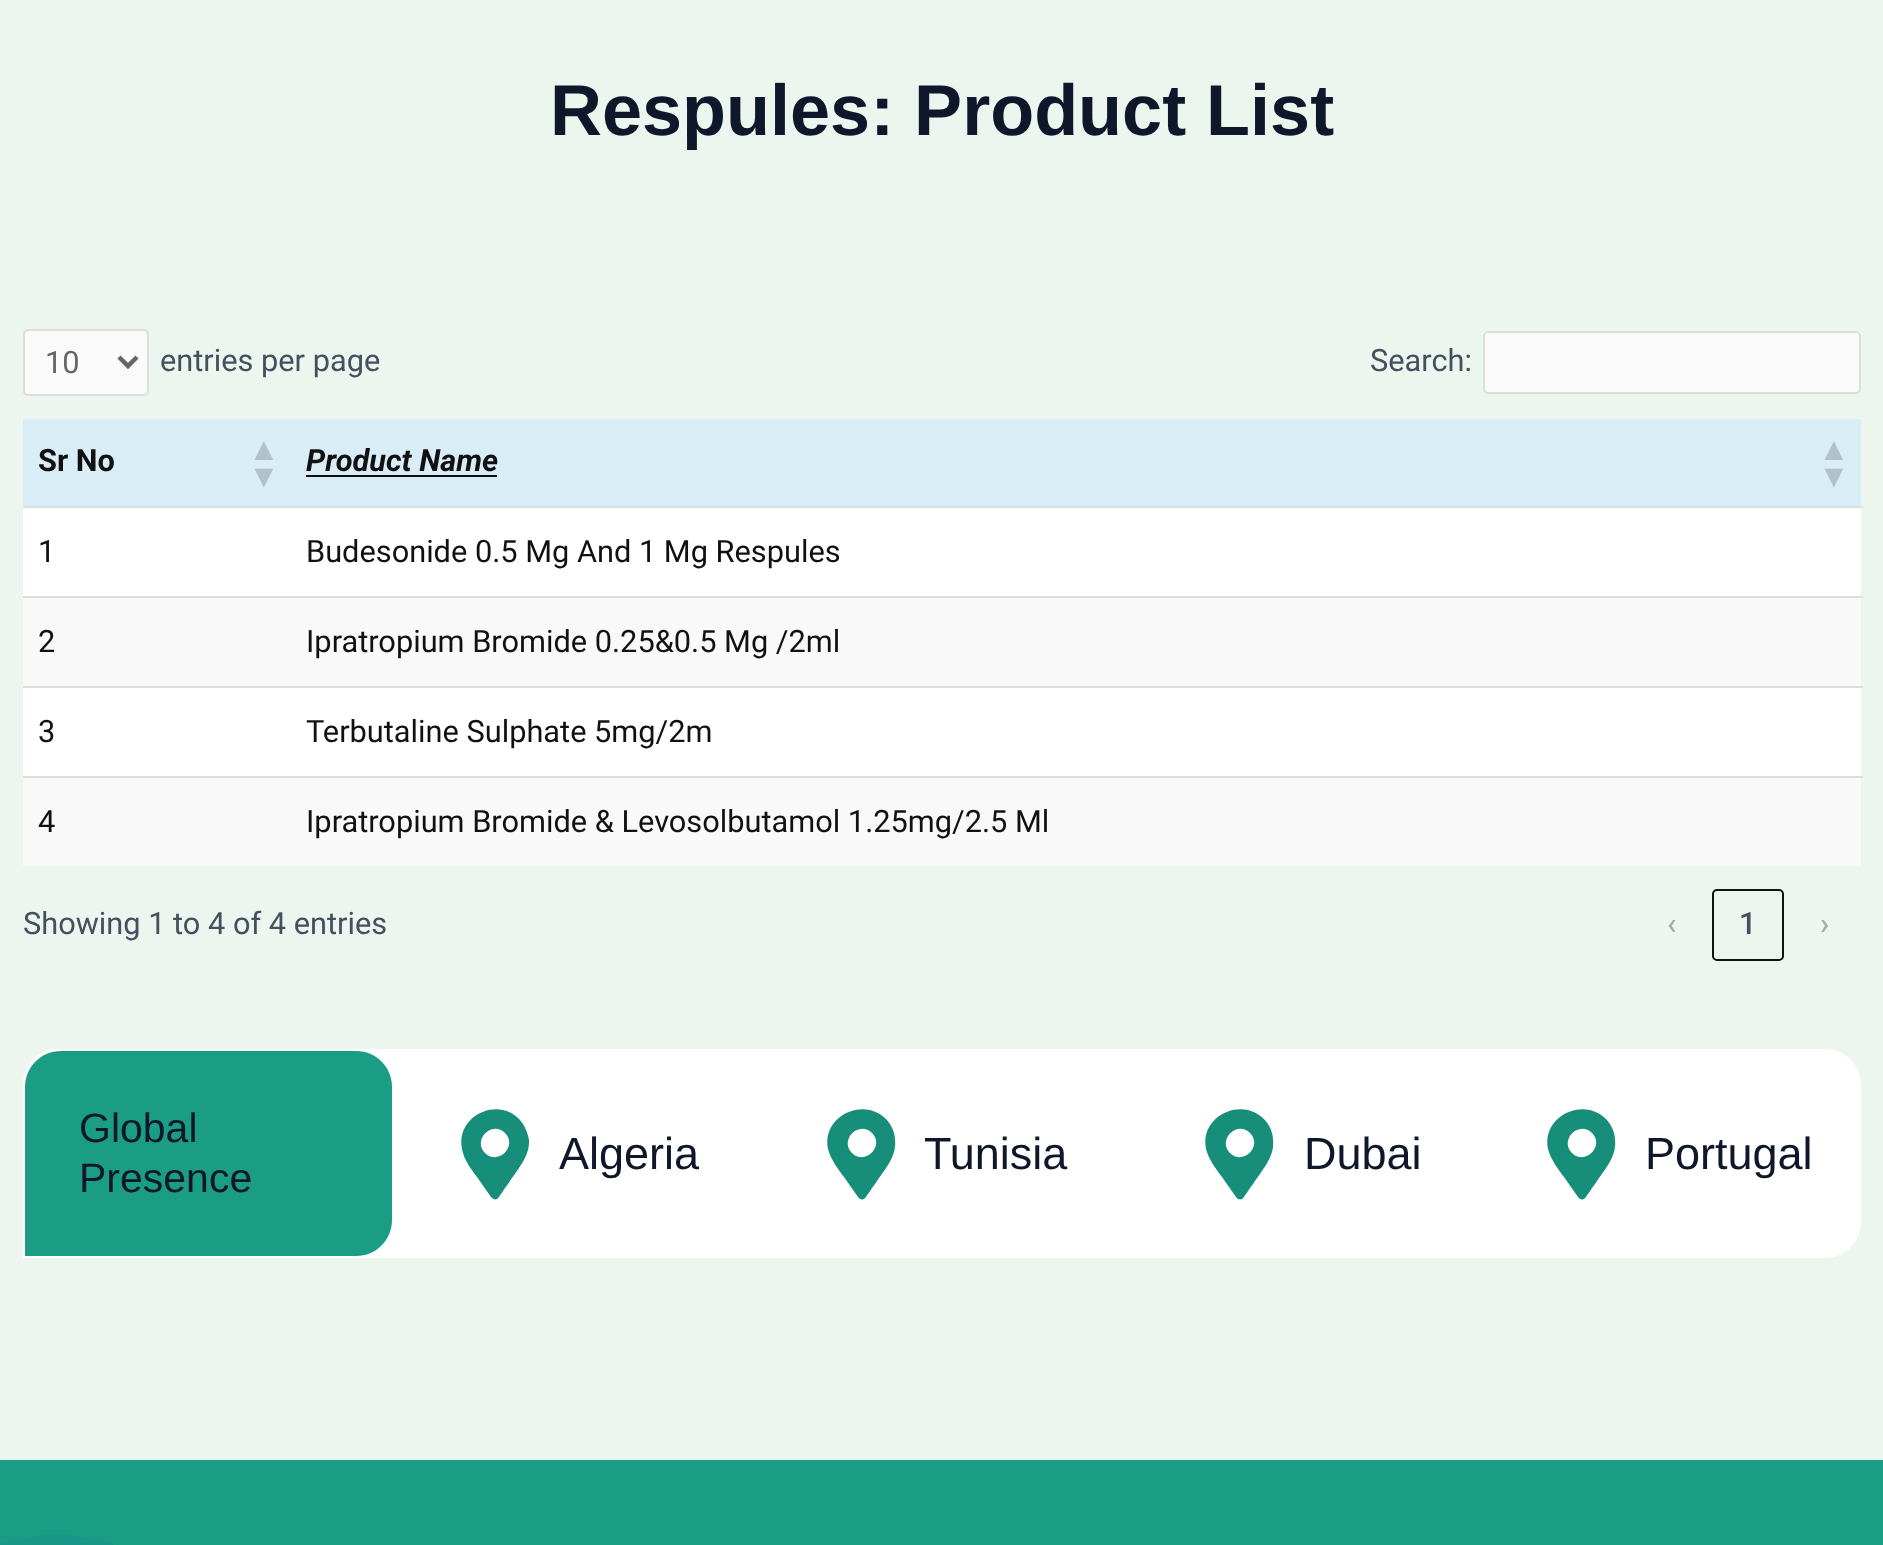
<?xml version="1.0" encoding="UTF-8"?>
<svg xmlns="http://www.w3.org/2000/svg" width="1883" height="1545">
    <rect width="100%" height="100%" fill="#EDF6EE"/>
    <text x="550" y="135" font-family="Liberation Sans" font-size="72" font-weight="700" fill="#0F172A">Respules: Product List</text>
    <rect x="24" y="330" width="124" height="65" rx="4" fill="#FAFAFA" stroke="#DDDDDD" stroke-width="2"/>
    <path d="M 119 357 L 128 366 L 137 357" fill="none" stroke="#666666" stroke-width="4.5"/>
    <text x="45" y="373" font-family="Roboto" font-size="30.75" fill="#666666">10</text>
    <text x="160" y="371" font-family="Roboto" font-size="30.75" fill="#454F5E">entries per page</text>
    <text x="1370" y="371" font-family="Roboto" font-size="30.75" fill="#454F5E">Search:</text>
    <rect x="1484" y="332" width="376" height="61" rx="4" fill="#FAFAFA" stroke="#DDDDDD" stroke-width="2"/>
    <rect x="23" y="419" width="1838" height="87" fill="#D9EDF7"/>
    <text x="38" y="471" font-family="Roboto" font-size="30.75" font-weight="700" fill="#111111">Sr No</text>
    <text font-family="Liberation Sans" font-size="32" font-weight="700" fill="#B1C1C9">
        <tspan x="248" y="460">▲</tspan>
        <tspan x="248" y="487">▼</tspan>
    </text>
    <text x="306" y="471" font-family="Roboto" font-size="30.75" font-weight="700" font-style="italic" fill="#111111">Product Name</text>
    <rect x="306" y="475" width="191" height="2" fill="#111111"/>
    <text font-family="Liberation Sans" font-size="32" font-weight="700" fill="#B1C1C9">
        <tspan x="1818" y="460">▲</tspan>
        <tspan x="1818" y="487">▼</tspan>
    </text>
    <rect x="23" y="508" width="1838" height="88" fill="#FFFFFF"/>
    <text x="38" y="562" font-family="Roboto" font-size="30.75" fill="#111111">1</text>
    <rect x="23" y="506" width="1840" height="2" fill="#DDDDDD"/>
    <text x="306" y="562" font-family="Roboto" font-size="30.75" fill="#111111">Budesonide 0.5 Mg And 1 Mg Respules</text>
    <rect x="23" y="598" width="1838" height="88" fill="#F9F9F9"/>
    <text x="38" y="652" font-family="Roboto" font-size="30.75" fill="#111111">2</text>
    <rect x="23" y="596" width="1840" height="2" fill="#DDDDDD"/>
    <text x="306" y="652" font-family="Roboto" font-size="30.75" fill="#111111">Ipratropium Bromide 0.25&amp;0.5 Mg /2ml</text>
    <rect x="23" y="688" width="1838" height="88" fill="#FFFFFF"/>
    <text x="38" y="742" font-family="Roboto" font-size="30.75" fill="#111111">3</text>
    <rect x="23" y="686" width="1840" height="2" fill="#DDDDDD"/>
    <text x="306" y="742" font-family="Roboto" font-size="30.75" fill="#111111">Terbutaline Sulphate 5mg/2m</text>
    <rect x="23" y="778" width="1838" height="88" fill="#F9F9F9"/>
    <text x="38" y="832" font-family="Roboto" font-size="30.75" fill="#111111">4</text>
    <rect x="23" y="776" width="1840" height="2" fill="#DDDDDD"/>
    <text x="306" y="832" font-family="Roboto" font-size="30.75" fill="#111111">Ipratropium Bromide &amp; Levosolbutamol 1.25mg/2.5 Ml</text>
    <text x="23" y="934" font-family="Roboto" font-size="30.75" fill="#454F5E">Showing 1 to 4 of 4 entries</text>
    <text x="1667" y="934" font-family="Roboto" font-size="30.75" font-weight="500" fill="#A6ACA7">‹</text>
    <rect x="1713" y="890" width="70" height="70" rx="4" fill="none" stroke="#111111" stroke-width="2"/>
    <text x="1739" y="934" font-family="Roboto" font-size="30.75" font-weight="500" fill="#454F5E">1</text>
    <text x="1820" y="934" font-family="Roboto" font-size="30.75" font-weight="500" fill="#A6ACA7">›</text>
    <path d="M 59 1050 H 1825 C 1844.5 1050 1860 1065.5 1860 1085 V 1222 C 1860 1241.5 1844.5 1257 1825 1257 H 24 V 1085 C 24 1065.5 39.5 1050 59 1050 Z" fill="#FFFFFF" stroke="#FFFFFF" stroke-width="2"/>
    <path d="M 61 1051 H 356 C 376 1051 392 1067 392 1087 V 1220 C 392 1240 376 1256 356 1256 H 25 V 1087 C 25 1067 41 1051 61 1051 Z" fill="#1B9C85"/>
    <text font-family="Liberation Sans" font-size="41" fill="#0F172A">
        <tspan x="79" y="1142">Global</tspan>
        <tspan x="79" y="1192">Presence</tspan>
    </text>
    <path d="M 491 1197 L 477 1177 C 471 1169 464 1160 462 1149 C 455 1114 503 1094 523 1124 C 526 1129 528 1134 529 1140 C 530 1157 517 1170 508 1184 C 506 1186 499 1198 497 1199 C 495 1200 493 1199 491 1197 Z M 485 1153 C 498 1166 518 1146 505 1133 C 492 1120 472 1140 485 1153 Z" fill="#178E79"/>
    <text x="559" y="1169" font-family="Liberation Sans" font-size="45" fill="#0F172A">Algeria</text>
    <path d="M 858 1197 L 844 1177 C 838 1169 831 1160 828 1149 C 821 1114 869 1094 890 1124 C 893 1129 895 1134 895 1140 C 897 1157 884 1170 875 1184 C 873 1186 866 1198 864 1199 C 862 1200 859 1199 858 1197 Z M 852 1153 C 865 1166 885 1146 872 1133 C 859 1120 839 1140 852 1153 Z" fill="#178E79"/>
    <text x="924" y="1169" font-family="Liberation Sans" font-size="45" fill="#0F172A">Tunisia</text>
    <path d="M 1236 1197 L 1222 1177 C 1216 1169 1209 1160 1206 1149 C 1199 1114 1247 1094 1268 1124 C 1271 1129 1273 1134 1273 1140 C 1275 1157 1262 1170 1253 1184 C 1251 1186 1244 1198 1242 1199 C 1240 1200 1237 1199 1236 1197 Z M 1230 1153 C 1243 1166 1263 1146 1250 1133 C 1237 1120 1217 1140 1230 1153 Z" fill="#178E79"/>
    <text x="1304" y="1169" font-family="Liberation Sans" font-size="45" fill="#0F172A">Dubai</text>
    <path d="M 1578 1197 L 1564 1177 C 1558 1169 1551 1160 1548 1149 C 1541 1114 1589 1094 1610 1124 C 1613 1129 1615 1134 1615 1140 C 1617 1157 1604 1170 1595 1184 C 1593 1186 1586 1198 1584 1199 C 1582 1200 1579 1199 1578 1197 Z M 1572 1153 C 1585 1166 1605 1146 1592 1133 C 1579 1120 1559 1140 1572 1153 Z" fill="#178E79"/>
    <text x="1645" y="1169" font-family="Liberation Sans" font-size="45" fill="#0F172A">Portugal</text>
    <rect x="0" y="1460" width="1883" height="85" fill="#1B9C85"/>
    <image x="0" y="1535" width="113" height="10" href="img_01.png"/>
</svg>
